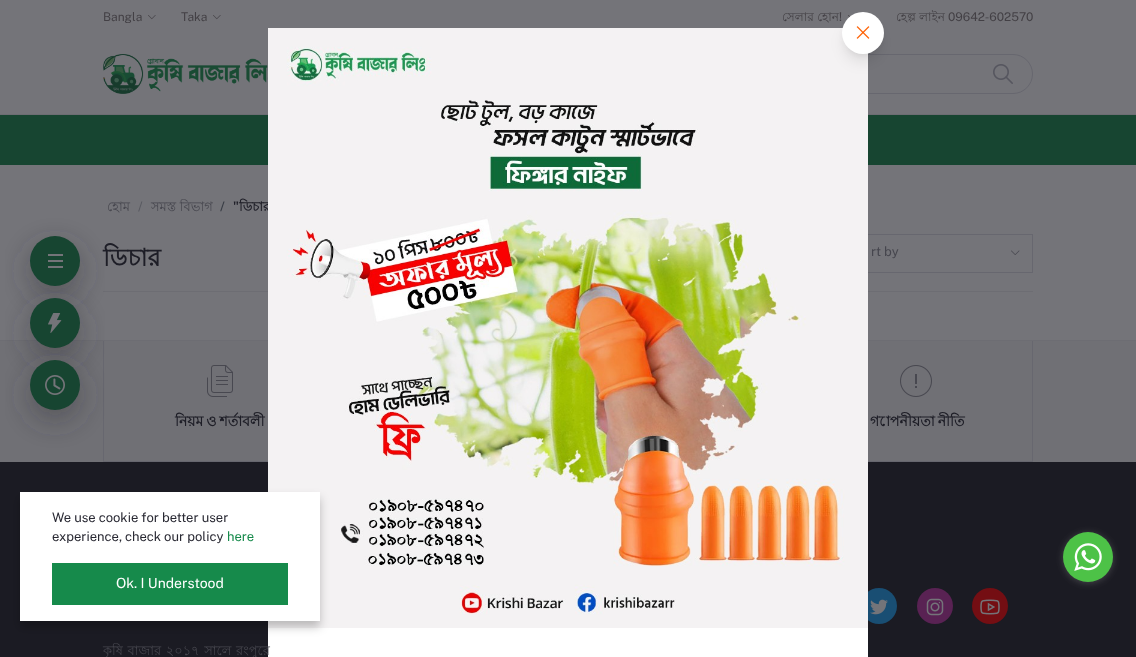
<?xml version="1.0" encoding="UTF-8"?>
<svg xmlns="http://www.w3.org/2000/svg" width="1136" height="657">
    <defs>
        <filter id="blur1" x="-50%" y="-200%" width="200%" height="500%"><feGaussianBlur stdDeviation="3"/></filter>
        <filter id="blur2" x="-50%" y="-200%" width="200%" height="500%"><feGaussianBlur stdDeviation="7.5"/></filter>
        <filter id="blur3" x="-50%" y="-200%" width="200%" height="500%"><feGaussianBlur stdDeviation="15"/></filter>
        <filter id="blur4" x="-50%" y="-200%" width="200%" height="500%"><feGaussianBlur stdDeviation="5"/></filter>
        <filter id="blur5" x="-50%" y="-200%" width="200%" height="500%"><feGaussianBlur stdDeviation="3.5"/></filter>
    </defs>
    <rect width="100%" height="100%" fill="#747479"/>
    <rect x="0" y="462" width="1136" height="195" fill="#1B1B23"/>
    <rect x="268" y="628" width="600" height="29" fill="#FFFFFF"/>
    <rect x="0" y="114" width="1136" height="1" fill="#6D6D73"/>
    <rect x="309.5" y="54.5" width="723" height="39" rx="19.5" fill="none" stroke="#67676F"/>
    <rect x="0" y="115" width="1136" height="50" fill="#174531"/>
    <text x="239" y="211" font-family="Lohit Bengali" font-size="13" font-weight="700" fill="#1E1E27">ডিচার</text>
    <rect x="843.5" y="234.5" width="189" height="38" fill="none" stroke="#67676F"/>
    <rect x="103" y="291" width="930" height="1" fill="#6D6D73"/>
    <rect x="0" y="341" width="1136" height="121" fill="#707075"/>
    <rect x="0" y="340" width="1136" height="1" fill="#6D6D73"/>
    <circle cx="879" cy="606" r="18" fill="#194E73"/>
    <image x="268" y="28" width="600" height="600" href="img_02.png"/>
    <image x="848" y="15" width="3" height="3" href="img_06.png"/>
    <rect x="844" y="18" width="38" height="38" rx="19" fill="#000000" fill-opacity="0.05" filter="url(#blur1)"/>
    <rect x="845" y="25" width="36" height="36" rx="18" fill="#000000" fill-opacity="0.1" filter="url(#blur2)"/>
    <circle cx="863" cy="33" r="21" fill="#FFFFFF"/>
    <image x="856" y="26" width="14" height="13" href="img_01.png"/>
    <rect x="103" y="341" width="1" height="121" fill="#67676F"/>
    <rect x="30" y="246" width="50" height="50" rx="25" fill="#38383D" fill-opacity="0.5" filter="url(#blur3)"/>
    <rect x="30" y="308" width="50" height="50" rx="25" fill="#38383D" fill-opacity="0.5" filter="url(#blur3)"/>
    <circle cx="55" cy="261" r="25" fill="#174531"/>
    <rect x="48" y="260" width="15" height="2" fill="#747479"/>
    <rect x="48" y="254" width="15" height="2" fill="#747479"/>
    <rect x="48" y="266" width="15" height="2" fill="#747479"/>
    <rect x="104" y="461" width="164" height="1" fill="#67676F"/>
    <rect x="30" y="370" width="50" height="50" rx="25" fill="#38383D" fill-opacity="0.5" filter="url(#blur3)"/>
    <circle cx="55" cy="323" r="25" fill="#174531"/>
    <image x="48" y="313" width="14" height="20" href="img_03.png"/>
    <circle cx="55" cy="385" r="25" fill="#174531"/>
    <image x="45" y="375" width="20" height="20" href="img_04.png"/>
    <text x="103" y="21" font-family="Public Sans" font-size="12" fill="#434045">Bangla</text>
    <image x="148" y="15" width="8" height="5" href="img_05.png"/>
    <text x="181" y="21" font-family="Public Sans" font-size="12" fill="#434045">Taka</text>
    <image x="213" y="15" width="8" height="5" href="img_05.png"/>
    <text x="782" y="21" font-family="Lohit Bengali" font-size="12" fill="#434045">সেলার হোন</text>
    <text x="839" y="21" font-family="Public Sans" font-size="12" fill="#434045">!</text>
    <text x="896" y="21" font-family="Lohit Bengali" font-size="12" fill="#434045">হেল্প লাইন</text>
    <text x="948" y="21" font-family="Public Sans" font-size="12" fill="#434045">09642-602570</text>
    <image x="103" y="54" width="165" height="40" href="img_07.png"/>
    <image x="993" y="64" width="20" height="20" href="img_08.png"/>
    <text x="107" y="211" font-family="Lohit Bengali" font-size="13" fill="#46464E">হোম</text>
    <text x="138" y="211" font-family="Public Sans" font-size="13" fill="#57585F">/</text>
    <text x="151" y="211" font-family="Lohit Bengali" font-size="13" fill="#46464E">সমস্ত বিভাগ</text>
    <text x="220" y="211" font-family="Public Sans" font-size="13" font-weight="600" fill="#393D45">/</text>
    <text x="233" y="211" font-family="Public Sans" font-size="13" font-weight="600" fill="#1E1E27">"</text>
    <text x="103" y="266" font-family="Lohit Bengali" font-size="24" font-weight="700" fill="#1E1E27">ডিচার</text>
    <text x="871" y="256" font-family="Public Sans" font-size="13" fill="#46464E">rt by</text>
    <image x="1011" y="250" width="9" height="5" href="img_09.png"/>
    <image x="207" y="365" width="26" height="32" href="img_10.png"/>
    <text x="175" y="426" word-spacing="-1" font-family="Lohit Bengali" font-size="14" font-weight="700" fill="#1E1E27">নিয়ম ও শর্তাবলী</text>
    <rect x="1032" y="341" width="1" height="121" fill="#67676F"/>
    <rect x="868" y="461" width="165" height="1" fill="#67676F"/>
    <image x="900" y="365" width="32" height="32" href="img_11.png"/>
    <text x="870" y="426" word-spacing="-1" font-family="Lohit Bengali" font-size="14" font-weight="700" fill="#1E1E27">গোপনীয়তা নীতি</text>
    <image x="870" y="599" width="18" height="16" href="img_12.png"/>
    <circle cx="935" cy="606" r="18" fill="#592253"/>
    <image x="926" y="598" width="18" height="18" href="img_13.png"/>
    <circle cx="990" cy="606" r="18" fill="#740E13"/>
    <image x="980" y="599" width="20" height="16" href="img_14.png"/>
    <text x="103" y="655" word-spacing="1" font-family="Lohit Bengali" font-size="13" fill="#46464E">কৃষি বাজার ২০১৭ সালে রংপুরে</text>
    <rect x="20" y="498" width="300" height="129" fill="#000000" fill-opacity="0.24" filter="url(#blur4)"/>
    <rect x="20" y="492" width="300" height="129" fill="#FFFFFF"/>
    <text font-family="Public Sans" font-size="13" fill="#292933">
        <tspan x="52" y="522">We use cookie for better user</tspan>
        <tspan x="52" y="541">experience, check our policy</tspan>
    </text>
    <text x="227" y="541" font-family="Public Sans" font-size="13" fill="#168A4B">here</text>
    <rect x="52" y="563" width="236" height="42" fill="#168A4B"/>
    <text x="116" y="588" font-family="Public Sans" font-size="14" fill="#FFFFFF">Ok. I Understood</text>
    <rect x="1063" y="533" width="50" height="50" rx="25" fill="#888888" fill-opacity="0.4" filter="url(#blur5)"/>
    <circle cx="1088" cy="557" r="25" fill="#4DC247"/>
    <image x="1074" y="543" width="28" height="28" href="img_15.png"/>
</svg>
